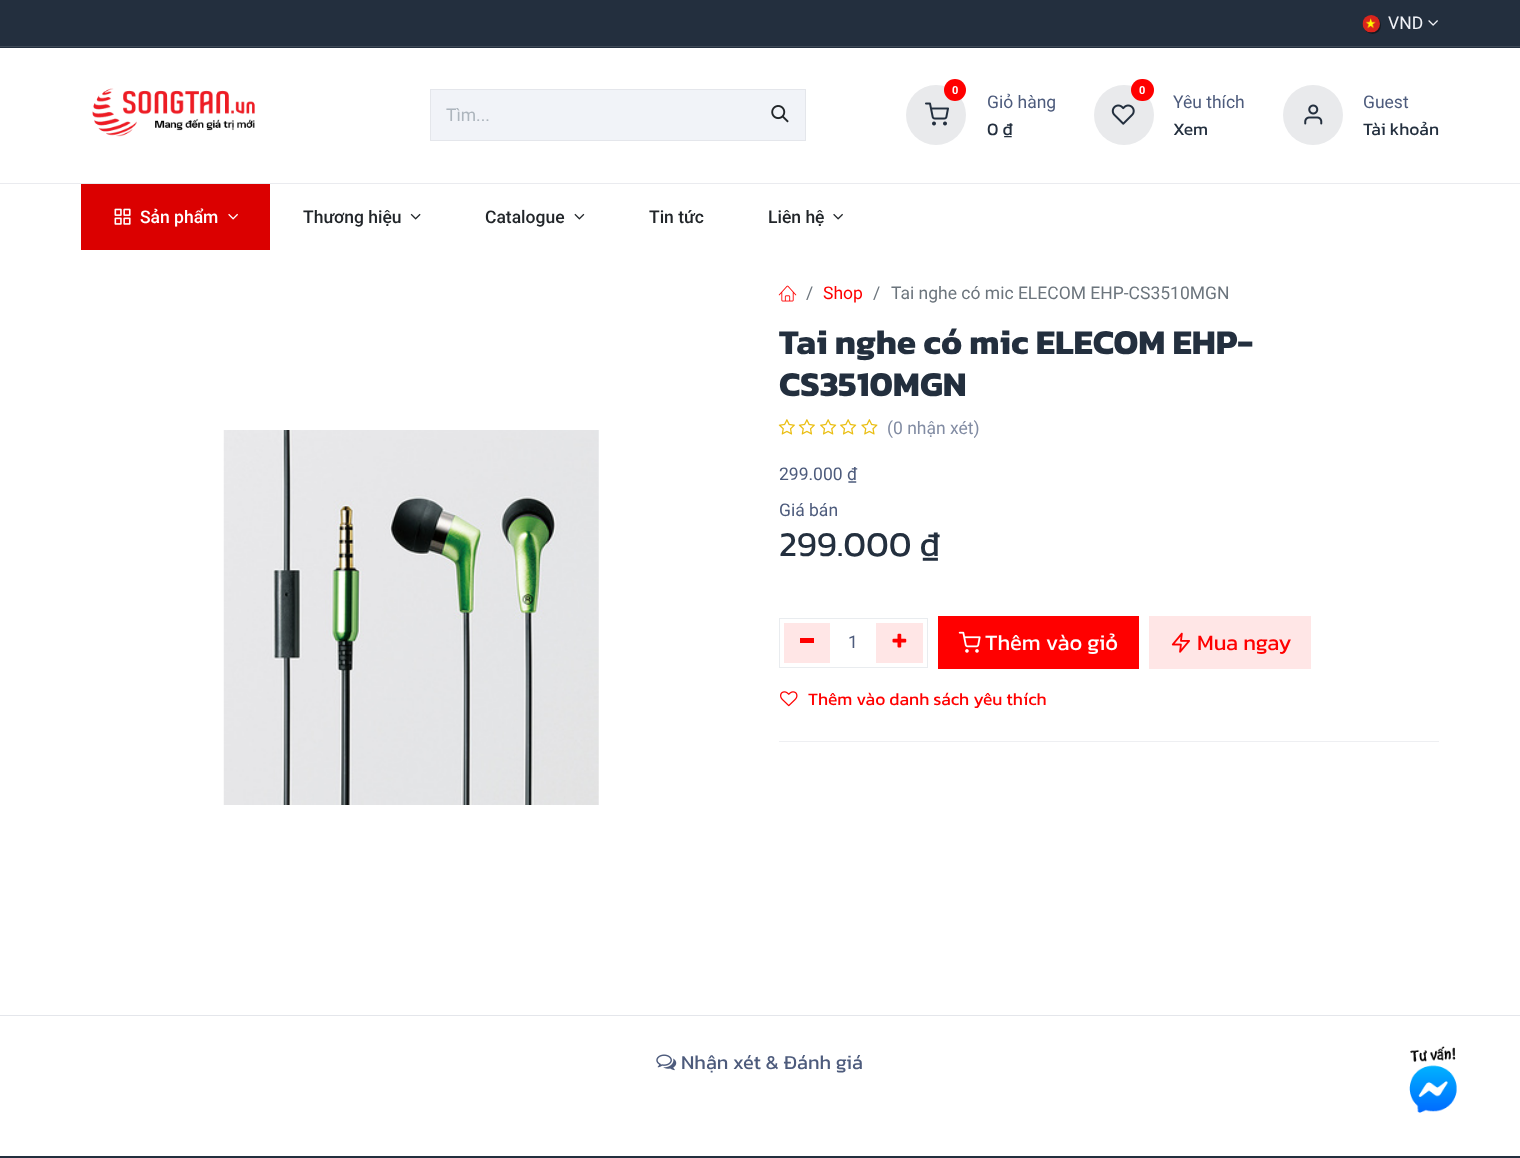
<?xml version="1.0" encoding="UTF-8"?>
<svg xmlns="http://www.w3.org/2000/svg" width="1520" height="1158">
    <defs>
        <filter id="blur1" x="-50%" y="-200%" width="200%" height="500%"><feGaussianBlur stdDeviation="0.5"/></filter>
    </defs>
    <rect width="100%" height="100%" fill="#FFFFFF"/>
    <rect x="0" y="0" width="1520" height="48" fill="#232F3E"/>
    <rect x="0" y="46" width="1520" height="1" fill="#3D4855"/>
    <rect x="1364" y="16" width="17" height="18" rx="8.5" fill="#000000" fill-opacity="0.43" filter="url(#blur1)"/>
    <image x="1362" y="15" width="18" height="18" href="img_01.png"/>
    <text x="1388" y="29" font-family="Roboto" font-size="17.5" fill="#F1F3F8">VND</text>
    <image x="1428" y="20" width="10" height="6" href="img_02.png"/>
    <rect x="0" y="183" width="1520" height="1" fill="#EAEBEF"/>
    <image x="92" y="88" width="163" height="49" href="img_03.png"/>
    <rect x="430.5" y="89.5" width="375" height="51" fill="none" stroke="#E4E6EB"/>
    <rect x="431" y="90" width="374" height="50" fill="#F1F3F8"/>
    <text x="446" y="121" font-family="Roboto" font-size="17.5" fill="#ADB5BD">Tìm...</text>
    <image x="771" y="105" width="18" height="18" href="img_04.png"/>
    <circle cx="936" cy="115" r="30" fill="#E9EAEC"/>
    <image x="925" y="102" width="24" height="24" href="img_05.png"/>
    <circle cx="955" cy="90" r="11" fill="#FF0000"/>
    <text x="952" y="94" font-family="Roboto" font-size="11" font-weight="700" fill="#FFFFFF">0</text>
    <text x="987" y="108" font-family="Roboto" font-size="17.5" fill="#4D5B7C">Giỏ hàng</text>
    <text x="987" y="135" font-family="Kanit" font-size="17.5" fill="#232F3E">0 ₫</text>
    <circle cx="1124" cy="115" r="30" fill="#E9EAEC"/>
    <image x="1111" y="104" width="24" height="21" href="img_06.png"/>
    <rect x="1131" y="79" width="23" height="22" rx="11" fill="#FF0000"/>
    <text x="1139" y="94" font-family="Roboto" font-size="11" font-weight="700" fill="#FFFFFF">0</text>
    <text x="1173" y="108" font-family="Roboto" font-size="17.5" fill="#4D5B7C">Yêu thích</text>
    <text x="1173" y="135" font-family="Kanit" font-size="17.5" fill="#232F3E">Xem</text>
    <circle cx="1313" cy="115" r="30" fill="#E9EAEC"/>
    <image x="1304" y="104" width="19" height="21" href="img_07.png"/>
    <text x="1363" y="108" font-family="Roboto" font-size="17.5" fill="#4D5B7C">Guest</text>
    <text x="1363" y="135" font-family="Kanit" font-size="17.5" fill="#232F3E">Tài khoản</text>
    <rect x="81" y="184" width="189" height="66" fill="#DB0000"/>
    <image x="114" y="208" width="17" height="17" href="img_08.png"/>
    <text x="140" y="223" font-family="Roboto" font-size="17.5" font-weight="500" fill="#FFFFFF">Sản phẩm</text>
    <image x="228" y="213" width="10" height="7" href="img_09.png"/>
    <text x="303" y="223" font-family="Roboto" font-size="17.5" font-weight="500" fill="#212529">Thương hiệu</text>
    <image x="410" y="213" width="11" height="7" href="img_10.png"/>
    <text x="485" y="223" font-family="Roboto" font-size="17.5" font-weight="500" fill="#212529">Catalogue</text>
    <image x="574" y="213" width="11" height="7" href="img_11.png"/>
    <text x="649" y="223" font-family="Roboto" font-size="17.5" font-weight="500" fill="#212529">Tin tức</text>
    <text x="768" y="223" font-family="Roboto" font-size="17.5" font-weight="500" fill="#212529">Liên hệ</text>
    <image x="833" y="213" width="10" height="7" href="img_12.png"/>
    <image x="223" y="430" width="376" height="375" href="img_13.png"/>
    <image x="778" y="285" width="19" height="17" href="img_14.png"/>
    <text x="806" y="299" font-family="Roboto" font-size="17.5" fill="#6C757D">/</text>
    <text x="823" y="299" font-family="Roboto" font-size="17.5" fill="#FF0000">Shop</text>
    <text x="873" y="299" font-family="Roboto" font-size="17.5" fill="#6C757D">/</text>
    <text x="891" y="299" font-family="Roboto" font-size="17.5" fill="#6C757D">Tai nghe có mic ELECOM EHP-CS3510MGN</text>
    <text font-family="Kanit" font-size="35" font-weight="700" fill="#232F3E">
        <tspan x="779" y="354">Tai nghe có mic ELECOM EHP-</tspan>
        <tspan x="779" y="396">CS3510MGN</tspan>
    </text>
    <image x="778" y="419" width="17" height="16" href="img_15.png"/>
    <image x="798" y="419" width="17" height="16" href="img_15.png"/>
    <image x="820" y="419" width="17" height="16" href="img_16.png"/>
    <image x="840" y="419" width="17" height="16" href="img_16.png"/>
    <image x="861" y="419" width="17" height="16" href="img_17.png"/>
    <text x="887" y="434" font-family="Roboto" font-size="17.5" fill="#828CA3">(0 nhận xét)</text>
    <text x="779" y="480" font-family="Roboto" font-size="17.5" fill="#4D5B7C">299.000 ₫</text>
    <text x="779" y="516" font-family="Roboto" font-size="17.5" fill="#4D5B7C">Giá bán</text>
    <text x="779" y="556" font-family="Kanit" font-size="35" fill="#232F3E">299.000 ₫</text>
    <rect x="779.5" y="618.5" width="148" height="49" fill="none" stroke="#E9ECEF"/>
    <rect x="784" y="623" width="46" height="40" fill="#FFE6E6"/>
    <rect x="800" y="638" width="14" height="5" fill="#FF0000"/>
    <text x="848" y="648" font-family="Roboto" font-size="17.5" fill="#4D5B7C">1</text>
    <rect x="876" y="623" width="47" height="40" fill="#FFE6E6"/>
    <image x="892" y="633" width="15" height="15" href="img_18.png"/>
    <rect x="938" y="616" width="201" height="53" fill="#FF0000"/>
    <image x="958" y="631" width="23" height="22" href="img_19.png"/>
    <text x="985" y="650" font-family="Kanit" font-size="22" fill="#FFFFFF">Thêm vào giỏ</text>
    <rect x="1149" y="616" width="162" height="53" fill="#FFE6E6"/>
    <image x="1171" y="632" width="19" height="21" href="img_20.png"/>
    <text x="1197" y="650" font-family="Kanit" font-size="22" fill="#FF0000">Mua ngay</text>
    <image x="780" y="691" width="18" height="16" href="img_21.png"/>
    <text x="808" y="705" font-family="Kanit" font-size="17.5" fill="#FF0000">Thêm vào danh sách yêu thích</text>
    <rect x="779" y="741" width="660" height="1" fill="#EEEFF2"/>
    <rect x="0" y="1015" width="1520" height="1" fill="#E4E6EB"/>
    <image x="656" y="1054" width="21" height="17" href="img_22.png"/>
    <text x="681" y="1069" font-family="Kanit" font-size="20" fill="#4D5B7C">Nhận xét &amp; Đánh giá</text>
    <rect x="0" y="1156" width="1520" height="2" fill="#232F3E"/>
    <image x="1409" y="1046" width="48" height="67" href="img_23.png"/>
</svg>
